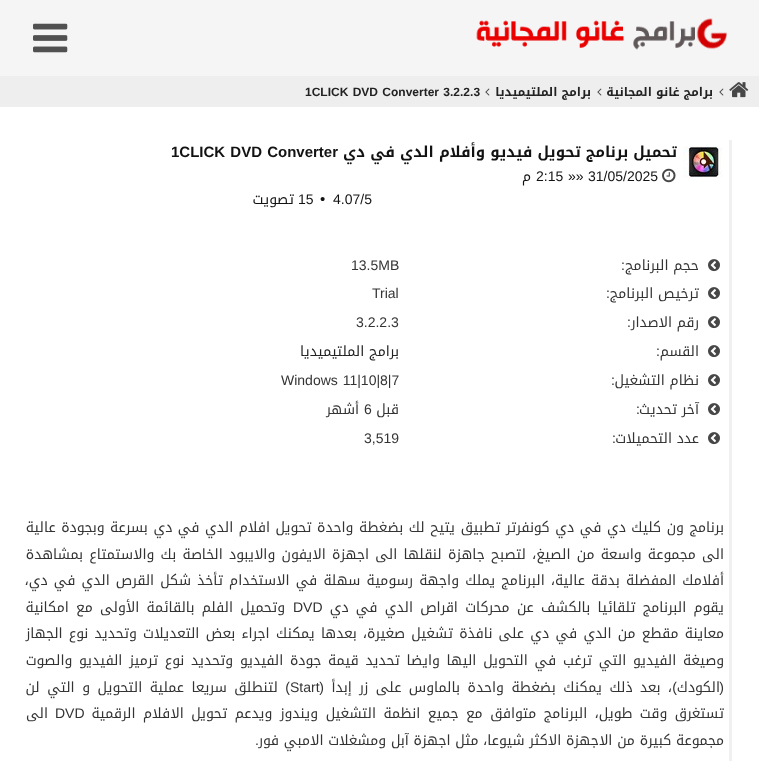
<?xml version="1.0" encoding="UTF-8"?>
<svg xmlns="http://www.w3.org/2000/svg" width="759" height="761">
    <rect width="100%" height="100%" fill="#FFFFFF"/>
    <rect x="0" y="0" width="759" height="76" fill="#F5F5F5"/>
    <image x="476" y="18" width="251" height="32" href="img_01.png"/>
    <image x="33" y="23" width="35" height="30" href="img_02.png"/>
    <rect x="0" y="76" width="759" height="31" fill="#EEEEEE"/>
    <image x="729" y="82" width="20" height="16" href="img_03.png"/>
    <image x="719" y="88" width="5" height="8" href="img_04.png"/>
    <text x="713" y="96" font-family="Noto Kufi Arabic" font-size="12" font-weight="700" direction="rtl" fill="#222222">برامج غانو المجانية</text>
    <image x="597" y="88" width="5" height="8" href="img_04.png"/>
    <text x="591" y="96" font-family="Noto Kufi Arabic" font-size="12" font-weight="700" direction="rtl" fill="#222222">برامج الملتيميديا</text>
    <image x="485" y="88" width="5" height="8" href="img_04.png"/>
    <text x="305" y="96" word-spacing="1" font-family="Liberation Sans" font-size="12" font-weight="700" fill="#222222">1CLICK DVD Converter 3.2.2.3</text>
    <rect x="729" y="140" width="3" height="621" fill="#F0F0F0"/>
    <image x="683" y="146" width="40" height="32" href="img_05.png"/>
    <text x="677" y="157" font-family="Noto Kufi Arabic" font-size="15" font-weight="700" direction="rtl" fill="#121212">تحميل برنامج تحويل فيديو وأفلام الدي في دي</text>
    <text x="171" y="157" word-spacing="1" font-family="Liberation Sans" font-size="15" font-weight="700" fill="#121212">1CLICK DVD Converter</text>
    <image x="662" y="168" width="14" height="15" href="img_06.png"/>
    <text x="588" y="181" font-family="Liberation Sans" font-size="14" fill="#121212">31/05/2025</text>
    <text x="568" y="181" font-family="Liberation Sans" font-size="14" fill="#121212">»»</text>
    <text x="536" y="181" font-family="Liberation Sans" font-size="14" fill="#121212">2:15</text>
    <text x="531" y="181" font-family="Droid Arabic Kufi" font-size="14" direction="rtl" fill="#121212">م</text>
    <text x="333" y="204" font-family="Liberation Sans" font-size="14" fill="#121212">4.07/5</text>
    <text x="320" y="204" font-family="Liberation Sans" font-size="15" fill="#121212">•</text>
    <text x="298" y="204" font-family="Liberation Sans" font-size="14" fill="#121212">15</text>
    <text x="294" y="204" font-family="Droid Arabic Kufi" font-size="14" direction="rtl" fill="#121212">تصويت</text>
    <image x="708" y="259" width="12" height="13" href="img_07.png"/>
    <text x="699" y="270" font-family="Droid Arabic Kufi" font-size="14" direction="rtl" fill="#333333">حجم البرنامج</text>
    <text x="625" y="270" font-family="Liberation Sans" font-size="14" direction="rtl" fill="#333333">:</text>
    <text x="351" y="270" font-family="Liberation Sans" font-size="14" fill="#333333">13.5MB</text>
    <image x="708" y="287" width="12" height="13" href="img_07.png"/>
    <text x="699" y="298" font-family="Droid Arabic Kufi" font-size="14" direction="rtl" fill="#333333">ترخيص البرنامج</text>
    <text x="610" y="298" font-family="Liberation Sans" font-size="14" direction="rtl" fill="#333333">:</text>
    <text x="372" y="298" font-family="Liberation Sans" font-size="14" fill="#333333">Trial</text>
    <image x="708" y="316" width="12" height="13" href="img_07.png"/>
    <text x="631" y="327" font-family="Liberation Sans" font-size="14" direction="rtl" fill="#333333">:</text>
    <text x="699" y="327" font-family="Droid Arabic Kufi" font-size="14" direction="rtl" fill="#333333">رقم الاصدار</text>
    <text x="356" y="327" font-family="Liberation Sans" font-size="14" fill="#333333">3.2.2.3</text>
    <image x="708" y="345" width="12" height="13" href="img_07.png"/>
    <text x="699" y="356" font-family="Droid Arabic Kufi" font-size="14" direction="rtl" fill="#333333">القسم</text>
    <text x="660" y="356" font-family="Liberation Sans" font-size="14" direction="rtl" fill="#333333">:</text>
    <text x="399" y="356" font-family="Droid Arabic Kufi" font-size="14" direction="rtl" fill="#222222">برامج الملتيميديا</text>
    <image x="708" y="374" width="12" height="13" href="img_07.png"/>
    <text x="699" y="385" font-family="Droid Arabic Kufi" font-size="14" direction="rtl" fill="#333333">نظام التشغيل</text>
    <text x="615" y="385" font-family="Liberation Sans" font-size="14" direction="rtl" fill="#333333">:</text>
    <text x="281" y="385" word-spacing="1" font-family="Liberation Sans" font-size="14" fill="#333333">Windows 11|10|8|7</text>
    <image x="708" y="403" width="12" height="13" href="img_07.png"/>
    <text x="699" y="414" font-family="Droid Arabic Kufi" font-size="14" direction="rtl" fill="#333333">آخر تحديث</text>
    <text x="640" y="414" font-family="Liberation Sans" font-size="14" direction="rtl" fill="#333333">:</text>
    <text x="399" y="414" font-family="Droid Arabic Kufi" font-size="14" direction="rtl" fill="#333333">قبل</text>
    <text x="364" y="414" font-family="Liberation Sans" font-size="14" fill="#333333">6</text>
    <text x="359" y="414" font-family="Droid Arabic Kufi" font-size="14" direction="rtl" fill="#333333">أشهر</text>
    <image x="708" y="432" width="12" height="13" href="img_07.png"/>
    <text x="699" y="443" font-family="Droid Arabic Kufi" font-size="14" direction="rtl" fill="#333333">عدد التحميلات</text>
    <text x="616" y="443" font-family="Liberation Sans" font-size="14" direction="rtl" fill="#333333">:</text>
    <text x="364" y="443" font-family="Liberation Sans" font-size="14" fill="#333333">3,519</text>
    <text font-family="Droid Arabic Kufi" font-size="14" direction="rtl" fill="#333333">
        <tspan x="724" y="532" word-spacing="0.8">برنامج ون كليك دي في دي كونفرتر تطبيق يتيح لك بضغطة واحدة تحويل افلام الدي في دي بسرعة وبجودة عالية</tspan>
        <tspan x="724" y="559" word-spacing="1.5">الى مجموعة واسعة من الصيغ، لتصبح جاهزة لنقلها الى اجهزة الايفون والايبود الخاصة بك والاستمتاع بمشاهدة</tspan>
        <tspan x="724" y="585" word-spacing="1.4">أفلامك المفضلة بدقة عالية، البرنامج يملك واجهة رسومية سهلة في الاستخدام تأخذ شكل القرص الدي في دي،</tspan>
        <tspan x="724" y="612" word-spacing="2.5">يقوم البرنامج تلقائيا بالكشف عن محركات اقراص الدي في دي</tspan>
    </text>
    <text x="293" y="612" font-family="Liberation Sans" font-size="14" fill="#333333">DVD</text>
    <text x="285" y="612" word-spacing="2.5" font-family="Droid Arabic Kufi" font-size="14" direction="rtl" fill="#333333">وتحميل الفلم بالقائمة الأولى مع امكانية</text>
    <text font-family="Droid Arabic Kufi" font-size="14" direction="rtl" fill="#333333">
        <tspan x="724" y="638" word-spacing="1.5">معاينة مقطع من الدي في دي على نافذة تشغيل صغيرة، بعدها يمكنك اجراء بعض التعديلات وتحديد نوع الجهاز</tspan>
        <tspan x="724" y="665" word-spacing="2">وصيغة الفيديو التي ترغب في التحويل اليها وايضا تحديد قيمة جودة الفيديو وتحديد نوع ترميز الفيديو والصوت</tspan>
    </text>
    <text x="724" y="692" font-family="Liberation Sans" font-size="14" direction="rtl" fill="#333333">(</text>
    <text x="720" y="692" font-family="Droid Arabic Kufi" font-size="14" direction="rtl" fill="#333333">الكودك</text>
    <text x="677" y="692" font-family="Liberation Sans" font-size="14" direction="rtl" fill="#333333">)</text>
    <text x="672" y="692" word-spacing="2.75" font-family="Droid Arabic Kufi" font-size="14" direction="rtl" fill="#333333">، بعد ذلك يمكنك بضغطة واحدة بالماوس على زر إبدأ</text>
    <text x="324" y="692" font-family="Liberation Sans" font-size="14" direction="rtl" fill="#333333">(</text>
    <text x="290" y="692" font-family="Liberation Sans" font-size="14" fill="#333333">Start</text>
    <text x="290" y="692" font-family="Liberation Sans" font-size="14" direction="rtl" fill="#333333">)</text>
    <text x="278" y="692" word-spacing="2.75" font-family="Droid Arabic Kufi" font-size="14" direction="rtl" fill="#333333">لتنطلق سريعا عملية التحويل و التي لن</text>
    <text x="724" y="718" word-spacing="2.75" font-family="Droid Arabic Kufi" font-size="14" direction="rtl" fill="#333333">تستغرق وقت طويل، البرنامج متوافق مع جميع انظمة التشغيل ويندوز ويدعم تحويل الافلام الرقمية</text>
    <text x="55" y="718" font-family="Liberation Sans" font-size="14" fill="#333333">DVD</text>
    <text x="48" y="718" font-family="Droid Arabic Kufi" font-size="14" direction="rtl" fill="#333333">الى</text>
    <text x="724" y="745" font-family="Droid Arabic Kufi" font-size="14" direction="rtl" fill="#333333">مجموعة كبيرة من الاجهزة الاكثر شيوعا، مثل اجهزة آبل ومشغلات الامبي فور</text>
    <text x="259" y="745" font-family="Liberation Sans" font-size="14" direction="rtl" fill="#333333">.</text>
</svg>
